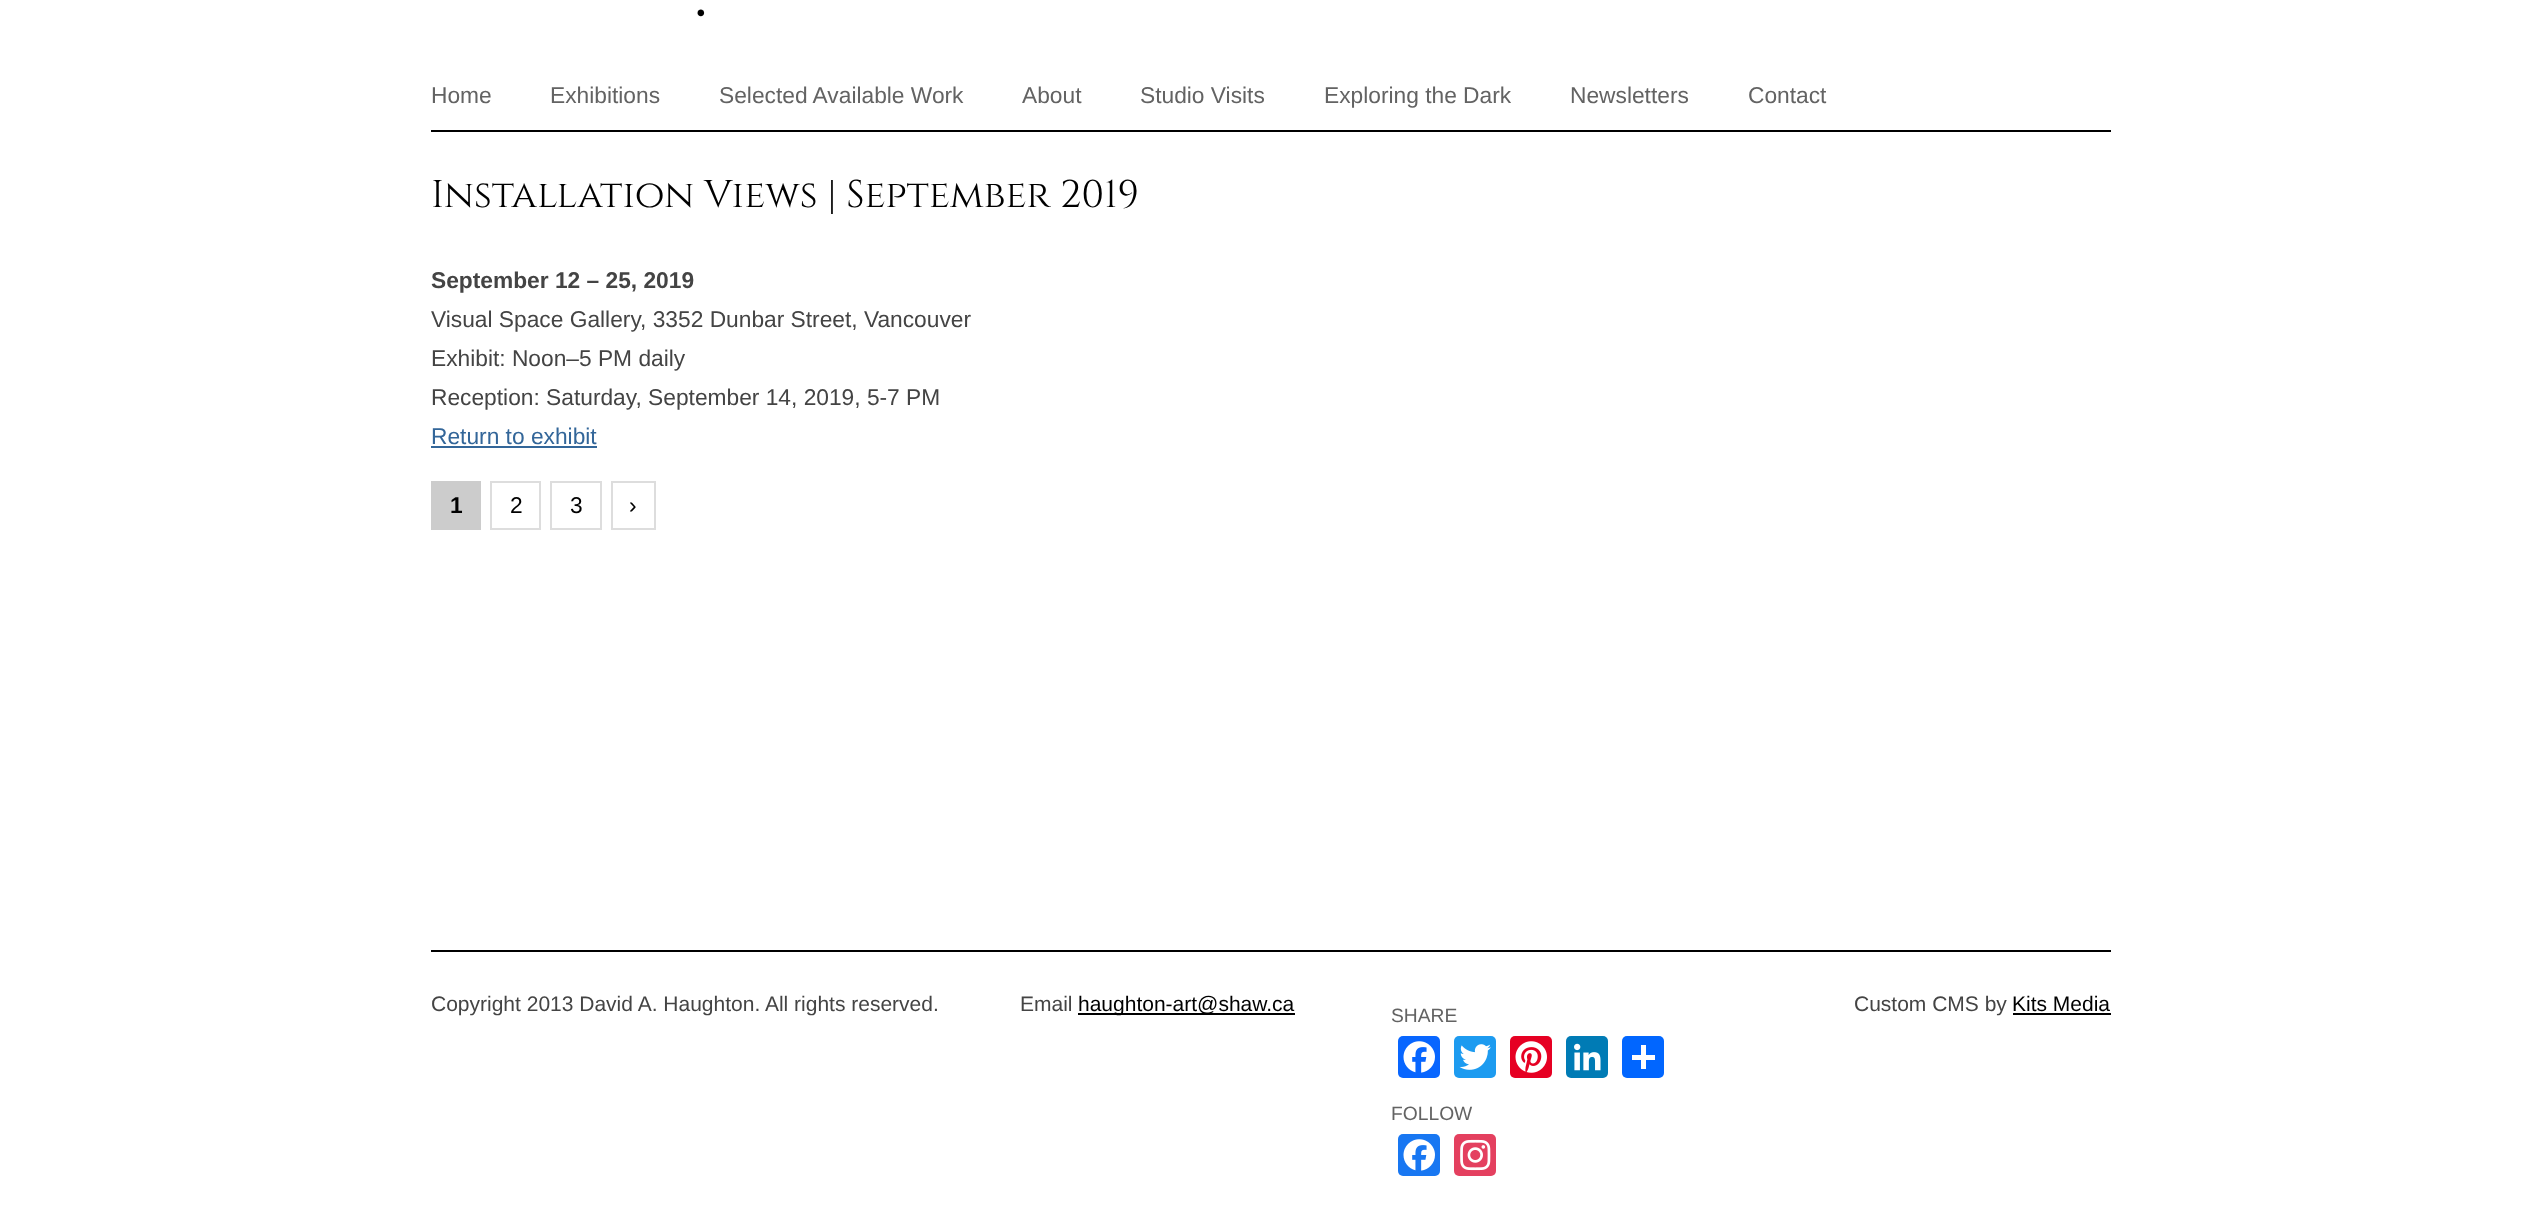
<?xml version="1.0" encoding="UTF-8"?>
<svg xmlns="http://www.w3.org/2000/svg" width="2541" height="1232">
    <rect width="100%" height="100%" fill="#FFFFFF"/>
    <text x="695" y="16" font-family="Cinzel" font-size="56" font-weight="700" letter-spacing="5" fill="#000000">.</text>
    <rect x="431" y="130" width="1680" height="2" fill="#000000"/>
    <text x="431" y="103" font-family="Liberation Sans" font-size="22.75" fill="#636363">Home</text>
    <text x="550" y="103" font-family="Liberation Sans" font-size="22.75" fill="#636363">Exhibitions</text>
    <text x="719" y="103" font-family="Liberation Sans" font-size="22.75" fill="#636363">Selected Available Work</text>
    <text x="1022" y="103" font-family="Liberation Sans" font-size="22.75" fill="#636363">About</text>
    <text x="1140" y="103" font-family="Liberation Sans" font-size="22.75" fill="#636363">Studio Visits</text>
    <text x="1324" y="103" font-family="Liberation Sans" font-size="22.75" fill="#636363">Exploring the Dark</text>
    <text x="1570" y="103" font-family="Liberation Sans" font-size="22.75" fill="#636363">Newsletters</text>
    <text x="1748" y="103" font-family="Liberation Sans" font-size="22.75" fill="#636363">Contact</text>
    <text x="431" y="207" font-family="Cinzel" font-size="38.5" fill="#000000">Installation Views | September 2019</text>
    <text x="431" y="288" font-family="Liberation Sans" font-size="22.75" font-weight="700" fill="#444444">September 12 – 25, 2019</text>
    <text font-family="Liberation Sans" font-size="22.75" fill="#444444">
        <tspan x="431" y="327">Visual Space Gallery, 3352 Dunbar Street, Vancouver</tspan>
        <tspan x="431" y="366">Exhibit: Noon–5 PM daily</tspan>
        <tspan x="431" y="405">Reception: Saturday, September 14, 2019, 5-7 PM</tspan>
    </text>
    <text x="431" y="444" font-family="Liberation Sans" font-size="22.75" fill="#336699">Return to exhibit</text>
    <rect x="431" y="446" width="166" height="2" fill="#336699"/>
    <rect x="431" y="481" width="50" height="49" fill="#CCCCCC"/>
    <text x="450" y="513" font-family="Liberation Sans" font-size="22.75" font-weight="700" fill="#000000">1</text>
    <rect x="491" y="482" width="49" height="47" fill="none" stroke="#DDDDDD" stroke-width="2"/>
    <text x="510" y="513" font-family="Liberation Sans" font-size="22.75" fill="#000000">2</text>
    <rect x="551" y="482" width="50" height="47" fill="none" stroke="#DDDDDD" stroke-width="2"/>
    <text x="570" y="513" font-family="Liberation Sans" font-size="22.75" fill="#000000">3</text>
    <rect x="612" y="482" width="43" height="47" fill="none" stroke="#DDDDDD" stroke-width="2"/>
    <text x="629" y="513" font-family="Liberation Sans" font-size="22.75" fill="#000000">›</text>
    <rect x="431" y="950" width="1680" height="2" fill="#000000"/>
    <text x="431" y="1011" font-family="Liberation Sans" font-size="21" fill="#444444">Copyright 2013 David A. Haughton. All rights reserved.</text>
    <text x="1020" y="1011" font-family="Liberation Sans" font-size="21" fill="#444444">Email</text>
    <rect x="1078" y="1013" width="217" height="2" fill="#000000"/>
    <text x="1078" y="1011" font-family="Liberation Sans" font-size="21" fill="#000000">haughton-art@shaw.ca</text>
    <text x="1854" y="1011" font-family="Liberation Sans" font-size="21" fill="#444444">Custom CMS by</text>
    <text x="2012" y="1011" font-family="Liberation Sans" font-size="21" fill="#000000">Kits Media</text>
    <rect x="2013" y="1013" width="98" height="2" fill="#000000"/>
    <text x="1391" y="1022" font-family="Liberation Sans" font-size="19.25" fill="#636363">SHARE</text>
    <rect x="1398" y="1036" width="42" height="42" rx="5" fill="#0866FF"/>
    <image x="1403" y="1041" width="32" height="32" href="img_01.png"/>
    <rect x="1454" y="1036" width="42" height="42" rx="5" fill="#1D9BF0"/>
    <image x="1459" y="1044" width="32" height="26" href="img_02.png"/>
    <rect x="1510" y="1036" width="42" height="42" rx="5" fill="#E60023"/>
    <image x="1515" y="1041" width="32" height="32" href="img_03.png"/>
    <rect x="1566" y="1036" width="42" height="42" rx="5" fill="#007BB5"/>
    <image x="1574" y="1043" width="27" height="28" href="img_04.png"/>
    <rect x="1622" y="1036" width="42" height="42" rx="5" fill="#0166FF"/>
    <rect x="1641" y="1045" width="5" height="24" fill="#FFFFFF"/>
    <rect x="1632" y="1055" width="23" height="5" fill="#FFFFFF"/>
    <text x="1391" y="1120" font-family="Liberation Sans" font-size="19.25" fill="#636363">FOLLOW</text>
    <rect x="1398" y="1134" width="42" height="42" rx="5" fill="#1877F2"/>
    <image x="1403" y="1139" width="32" height="32" href="img_05.png"/>
    <rect x="1454" y="1134" width="42" height="42" rx="5" fill="#E4405F"/>
    <image x="1460" y="1139" width="31" height="32" href="img_06.png"/>
</svg>
